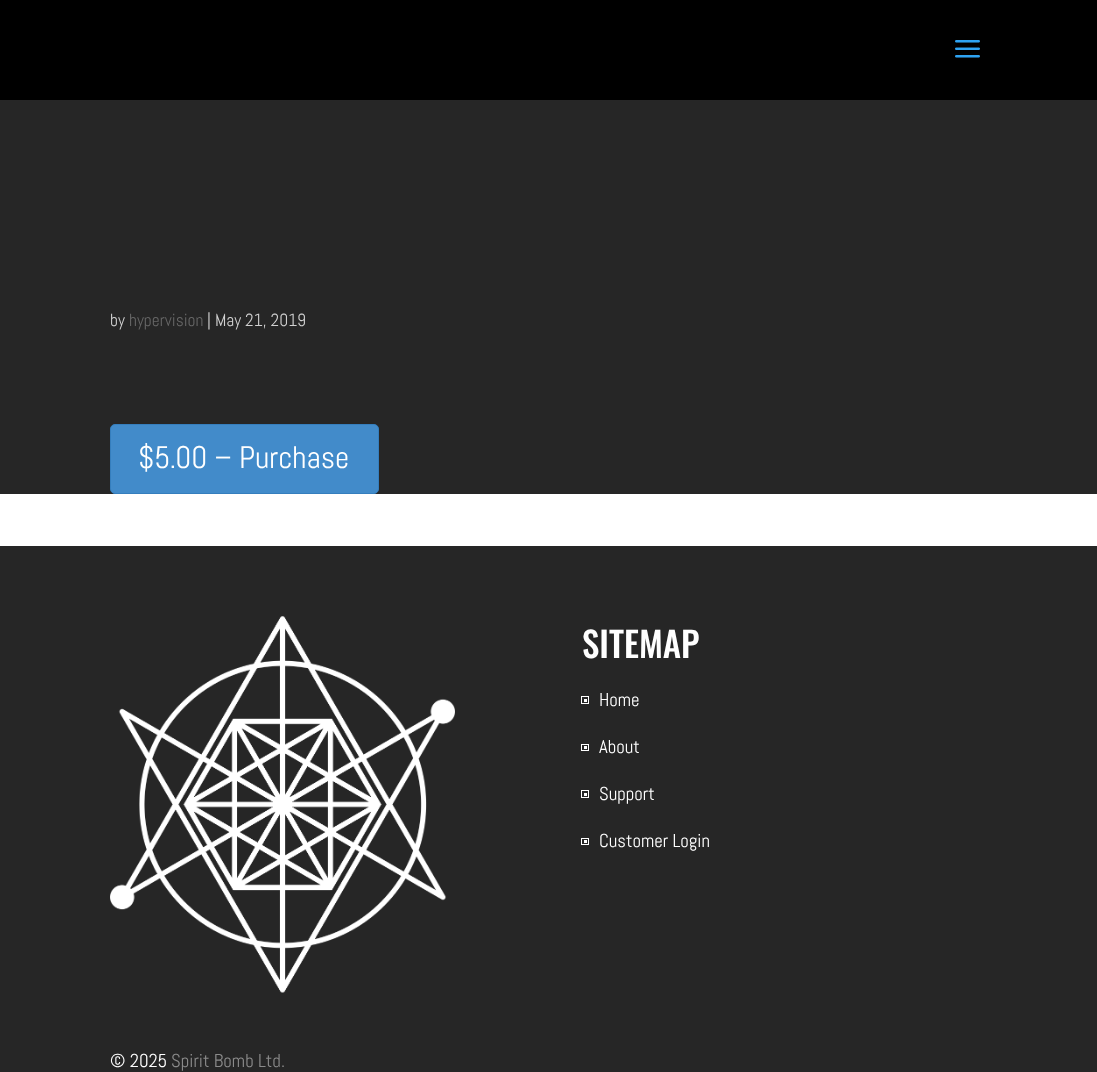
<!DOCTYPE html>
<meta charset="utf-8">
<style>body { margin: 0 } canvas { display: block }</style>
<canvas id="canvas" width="1097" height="1072"></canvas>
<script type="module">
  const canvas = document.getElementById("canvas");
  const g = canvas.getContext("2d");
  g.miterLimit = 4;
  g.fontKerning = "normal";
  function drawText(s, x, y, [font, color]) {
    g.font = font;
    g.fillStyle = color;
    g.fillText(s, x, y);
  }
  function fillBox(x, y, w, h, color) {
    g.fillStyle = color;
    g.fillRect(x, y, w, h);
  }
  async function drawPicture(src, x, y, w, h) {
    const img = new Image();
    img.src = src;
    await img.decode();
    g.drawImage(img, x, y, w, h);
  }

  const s1 = ["17.5px Abel", "#D1D1D1"];
  const s2 = ["17.5px Abel", "#666666"];
  const s3 = ["31.25px Abel", "#FFFFFF"];
  const s4 = ["500 35px Oswald", "#FFFFFF"];
  const s5 = ["18.75px Abel", "#FFFFFF"];
  const s6 = ["18.75px Abel", "#8B8B8B"];

  fillBox(0, 0, 1097, 1072, "#FFFFFF");
  fillBox(0, 0, 1097, 100, "#000000");
  await drawPicture("pic1.png", 955, 40, 25, 18);
  fillBox(0, 100, 1097, 394, "#262626");
  drawText("by", 110, 326, s1);
  drawText("hypervision", 129, 326, s2);
  drawText("| May 21, 2019", 207, 326, s1);
  g.fillStyle = "#428BCA";
  g.beginPath();
  g.roundRect(110.5, 424.5, 268, 69, 4.5);
  g.fill();
  g.strokeStyle = "#357EBD";
  g.stroke();
  drawText("$5.00 – Purchase", 138, 468, s3);
  fillBox(0, 546, 1097, 526, "#262626");
  drawText("SITEMAP", 582, 658, s4);
  g.strokeStyle = "#FFFFFF";
  g.strokeRect(581.5, 696.5, 7, 7);
  fillBox(584, 699, 3, 3, "#FFFFFF");
  drawText("Home", 599, 706, s5);
  g.strokeRect(581.5, 744.5, 7, 6);
  fillBox(584, 746, 3, 3, "#FFFFFF");
  drawText("About", 599, 753, s5);
  g.strokeRect(581.5, 790.5, 7, 7);
  fillBox(584, 793, 3, 3, "#FFFFFF");
  drawText("Support", 599, 800, s5);
  g.strokeRect(581.5, 838.5, 7, 6);
  fillBox(584, 840, 3, 3, "#FFFFFF");
  drawText("Customer Login", 599, 847, s5);
  await drawPicture("pic2.png", 110, 616, 345, 377);
  drawText("© 2025", 110, 1067, s5);
  drawText("Spirit Bomb Ltd.", 171, 1067, s6);
</script>
